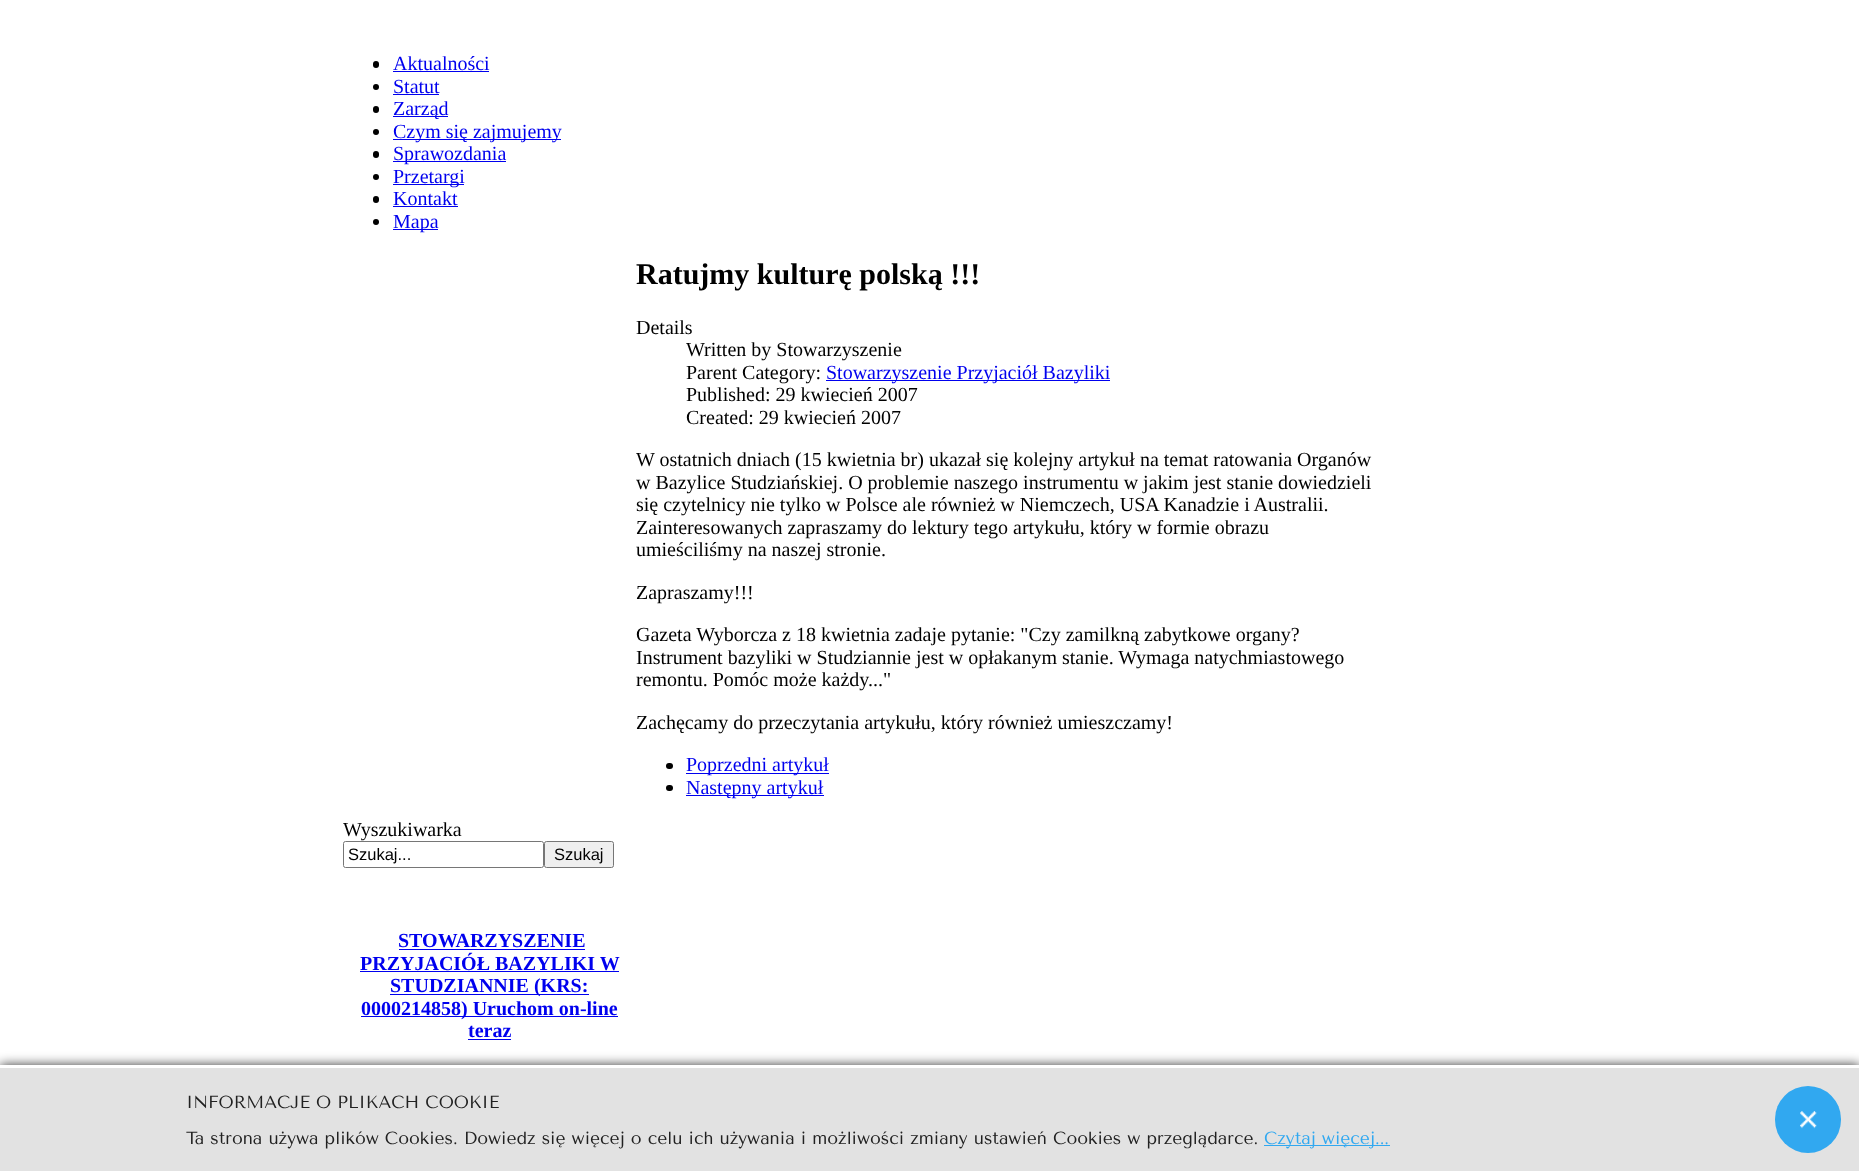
<!DOCTYPE html>
<meta charset="utf-8">
<style>body { margin: 0 } canvas { display: block }</style>
<canvas id="canvas" width="1859" height="1171"></canvas>
<script type="module">
  const canvas = document.getElementById("canvas");
  const g = canvas.getContext("2d");
  g.miterLimit = 4;
  g.fontKerning = "normal";
  function drawText(s, x, y, [font, color]) {
    g.font = font;
    g.fillStyle = color;
    g.fillText(s, x, y);
  }
  function fillBox(x, y, w, h, color) {
    g.fillStyle = color;
    g.fillRect(x, y, w, h);
  }
  function fillRounded(x, y, w, h, r, color) {
    g.fillStyle = color;
    g.beginPath();
    g.roundRect(x, y, w, h, r);
    g.fill();
  }
  async function drawPicture(src, x, y, w, h) {
    const img = new Image();
    img.src = src;
    await img.decode();
    g.drawImage(img, x, y, w, h);
  }

  const s1 = ["20px Liberation Serif", "#0000EE"];
  const s2 = ["bold 30px Liberation Serif", "#000000"];
  const s3 = ["20px Liberation Serif", "#000000"];
  const s4 = ["16.5px Liberation Sans", "#000000"];
  const s5 = ["bold 20px Liberation Serif", "#0000EE"];
  const s6 = ["17.5px Tenor Sans", "#212121"];
  const s7 = ["17.5px Tenor Sans", "#31A8F0"];

  fillBox(0, 0, 1859, 1171, "#FFFFFF");
  fillRounded(373, 61, 6, 7, 3, "#000000");
  drawText("Aktualności", 393, 70, s1);
  fillBox(393, 71, 96, 1, "#0000EE");
  g.fillStyle = "#000000";
  g.beginPath();
  g.arc(376, 87, 3, 0, Math.PI * 2);
  g.fill();
  drawText("Statut", 393, 93, s1);
  fillBox(393, 94, 46, 1, "#0000EE");
  fillRounded(373, 106, 6, 7, 3, "#000000");
  fillBox(393, 116, 55, 1, "#0000EE");
  drawText("Zarząd", 393, 115, s1);
  g.fillStyle = "#000000";
  g.beginPath();
  g.arc(376, 132, 3, 0, Math.PI * 2);
  g.fill();
  fillBox(393, 139, 168, 1, "#0000EE");
  drawText("Czym się zajmujemy", 393, 138, s1);
  fillRounded(373, 151, 6, 7, 3, "#000000");
  fillBox(393, 161, 113, 1, "#0000EE");
  drawText("Sprawozdania", 393, 160, s1);
  g.fillStyle = "#000000";
  g.beginPath();
  g.arc(376, 177, 3, 0, Math.PI * 2);
  g.fill();
  fillBox(393, 184, 71, 1, "#0000EE");
  drawText("Przetargi", 393, 183, s1);
  fillRounded(373, 196, 6, 7, 3, "#000000");
  drawText("Kontakt", 393, 205, s1);
  fillBox(393, 206, 65, 1, "#0000EE");
  g.fillStyle = "#000000";
  g.beginPath();
  g.arc(376, 222, 3, 0, Math.PI * 2);
  g.fill();
  fillBox(393, 229, 45, 1, "#0000EE");
  drawText("Mapa", 393, 228, s1);
  drawText("Ratujmy kulturę polską !!!", 636, 284, s2);
  drawText("Details", 636, 334, s3);
  drawText("Written by Stowarzyszenie", 686, 356, s3);
  drawText("Parent Category:", 686, 379, s3);
  fillBox(826, 380, 284, 1, "#0000EE");
  drawText("Stowarzyszenie Przyjaciół Bazyliki", 826, 379, s1);
  drawText("Published: 29 kwiecień 2007", 686, 401, s3);
  drawText("Created: 29 kwiecień 2007", 686, 424, s3);
  drawText("W ostatnich dniach (15 kwietnia br) ukazał się kolejny artykuł na temat ratowania Organów", 636, 466, s3);
  drawText("w Bazylice Studziańskiej. O problemie naszego instrumentu w jakim jest stanie dowiedzieli", 636, 489, s3);
  drawText("się czytelnicy nie tylko w Polsce ale również w Niemczech, USA Kanadzie i Australii.", 636, 511, s3);
  drawText("Zainteresowanych zapraszamy do lektury tego artykułu, który w formie obrazu", 636, 534, s3);
  drawText("umieściliśmy na naszej stronie.", 636, 556, s3);
  drawText("Zapraszamy!!!", 636, 599, s3);
  drawText("Gazeta Wyborcza z 18 kwietnia zadaje pytanie: \"Czy zamilkną zabytkowe organy?", 636, 641, s3);
  drawText("Instrument bazyliki w Studziannie jest w opłakanym stanie. Wymaga natychmiastowego", 636, 664, s3);
  drawText("remontu. Pomóc może każdy...\"", 636, 686, s3);
  drawText("Zachęcamy do przeczytania artykułu, który również umieszczamy!", 636, 729, s3);
  fillRounded(666, 763, 7, 6, 3, "#000000");
  fillBox(686, 773, 143, 1, "#0000EE");
  drawText("Poprzedni artykuł", 686, 771, s1);
  fillRounded(666, 785, 7, 6, 3, "#000000");
  fillBox(686, 795, 138, 1, "#0000EE");
  drawText("Następny artykuł", 686, 794, s1);
  drawText("Wyszukiwarka", 343, 836, s3);
  g.beginPath();
  g.roundRect(343.5, 841.5, 200, 26, 2);
  g.strokeStyle = "#767676";
  g.stroke();
  drawText("Szukaj...", 348, 860, s4);
  g.fillStyle = "#EFEFEF";
  g.beginPath();
  g.roundRect(544.5, 841.5, 69, 26, 2);
  g.fill();
  g.stroke();
  drawText("Szukaj", 554, 860, s4);
  drawText("STOWARZYSZENIE", 398, 947, s5);
  fillBox(399, 949, 186, 1, "#0000EE");
  drawText("PRZYJACIÓŁ BAZYLIKI W", 360, 970, s5);
  fillBox(360, 971, 259, 1, "#0000EE");
  fillBox(390, 994, 199, 1, "#0000EE");
  drawText("STUDZIANNIE (KRS:", 390, 992, s5);
  fillBox(361, 1016, 257, 1, "#0000EE");
  drawText("0000214858) Uruchom on-line", 361, 1015, s5);
  drawText("teraz", 468, 1037, s5);
  fillBox(468, 1039, 43, 1, "#0000EE");
  g.fillStyle = "rgba(0, 0, 0, 0.8)";
  g.filter = "blur(6px)";
  g.beginPath();
  g.rect(0, 1065, 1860, 106);
  g.fill();
  g.filter = "none";
  fillBox(0, 1068, 1859, 103, "#E2E2E2");
  fillBox(0, 1065, 1859, 3, "#FFFFFF");
  drawText("INFORMACJE O PLIKACH COOKIE", 186, 1108, s6);
  drawText("Ta strona używa plików Cookies. Dowiedz się więcej o celu ich używania i możliwości zmiany ustawień Cookies w przeglądarce.", 186, 1144, s6);
  fillBox(1264, 1145, 126, 1, "#31A8F0");
  drawText("Czytaj więcej...", 1264, 1144, s7);
  fillRounded(1775, 1086, 66, 67, 33, "#31A8F0");
  await drawPicture("pic1.png", 1800, 1111, 17, 18);
</script>
